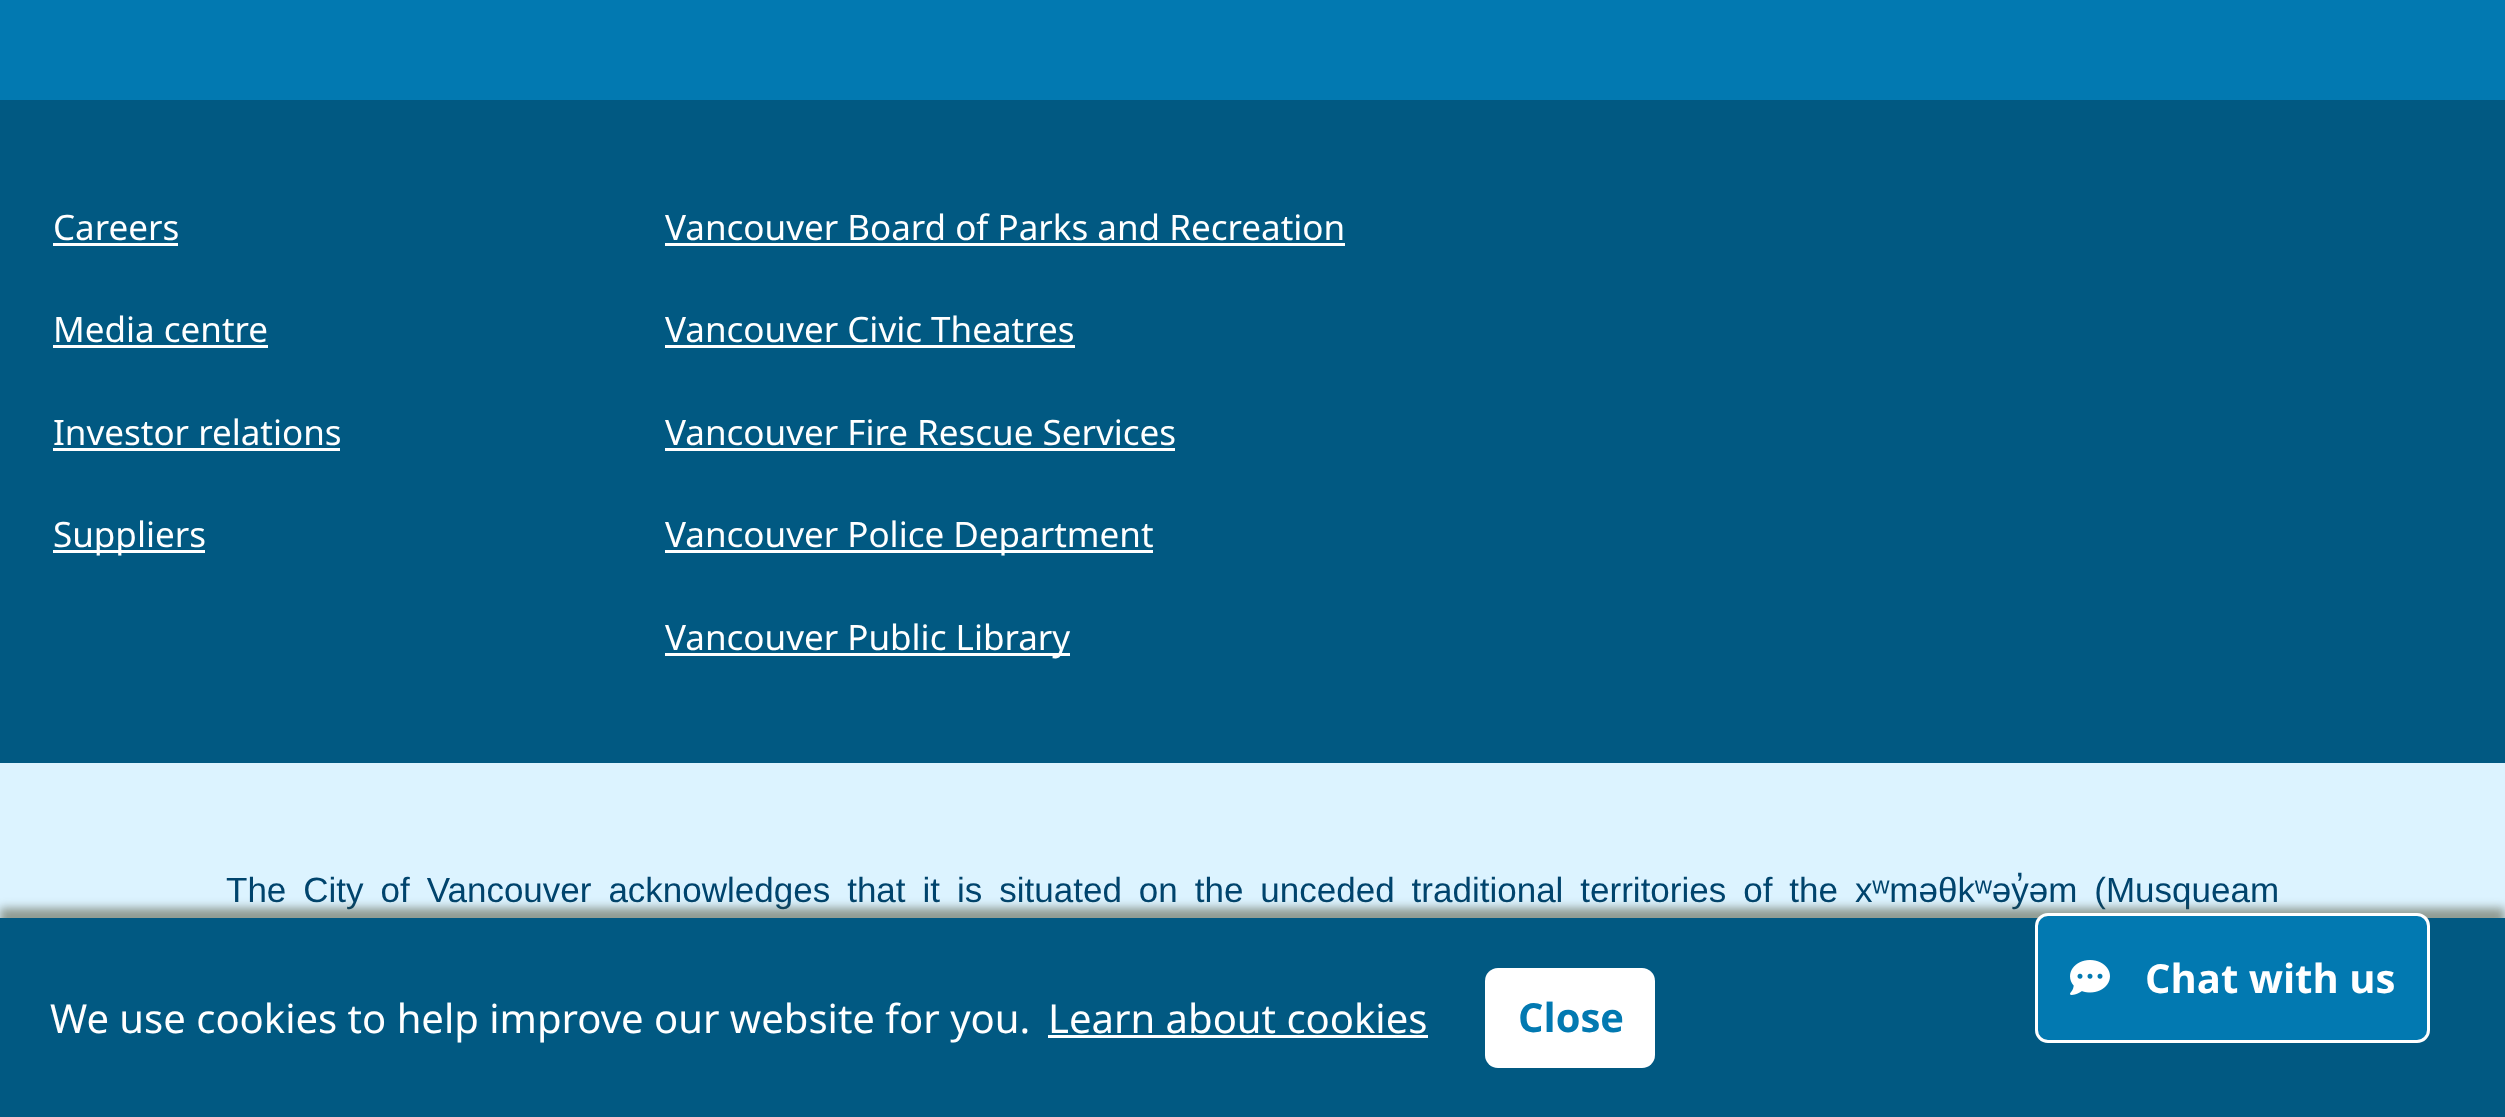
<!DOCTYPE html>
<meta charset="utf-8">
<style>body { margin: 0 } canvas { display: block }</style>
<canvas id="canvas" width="2505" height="1117"></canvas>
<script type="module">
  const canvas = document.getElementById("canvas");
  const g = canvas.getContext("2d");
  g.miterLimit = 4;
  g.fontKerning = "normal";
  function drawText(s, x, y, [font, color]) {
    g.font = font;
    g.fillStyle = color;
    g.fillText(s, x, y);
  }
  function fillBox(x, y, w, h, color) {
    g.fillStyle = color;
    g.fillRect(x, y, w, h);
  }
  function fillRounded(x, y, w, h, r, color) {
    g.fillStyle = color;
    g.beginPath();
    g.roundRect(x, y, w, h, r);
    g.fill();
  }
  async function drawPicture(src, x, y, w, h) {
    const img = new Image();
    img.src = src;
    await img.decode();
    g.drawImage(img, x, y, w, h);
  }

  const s1 = ["35px Noto Sans", "#FFFFFF"];
  const s2 = ["35px Liberation Sans", "#00446D"];
  const s3 = ["bold 40px Noto Sans", "#FFFFFF"];
  const s4 = ["40px Noto Sans", "#FFFFFF"];
  const s5 = ["bold 40px Noto Sans", "#0279B1"];

  fillBox(0, 0, 2505, 1117, "#0279B1");
  fillBox(0, 100, 2505, 663, "#015982");
  drawText("Careers", 53, 240, s1);
  fillBox(53, 243, 125, 3, "#FFFFFF");
  drawText("Media centre", 53, 342, s1);
  fillBox(53, 345, 215, 3, "#FFFFFF");
  drawText("Investor relations", 53, 445, s1);
  fillBox(53, 448, 287, 3, "#FFFFFF");
  fillBox(53, 550, 152, 3, "#FFFFFF");
  drawText("Suppliers", 53, 547, s1);
  drawText("Vancouver Board of Parks and Recreation", 665, 240, s1);
  fillBox(665, 243, 680, 3, "#FFFFFF");
  drawText("Vancouver Civic Theatres", 665, 342, s1);
  fillBox(665, 345, 410, 3, "#FFFFFF");
  drawText("Vancouver Fire Rescue Services", 665, 445, s1);
  fillBox(665, 448, 510, 3, "#FFFFFF");
  fillBox(665, 550, 488, 3, "#FFFFFF");
  drawText("Vancouver Police Department", 665, 547, s1);
  fillBox(665, 653, 405, 3, "#FFFFFF");
  drawText("Vancouver Public Library", 665, 650, s1);
  fillBox(0, 763, 2505, 155, "#DCF3FF");
  g.wordSpacing = "7.25px";
  drawText("The City of Vancouver acknowledges that it is situated on the unceded traditional territories of the xʷməθkʷəy̓əm (Musqueam", 226, 902, s2);
  g.fillStyle = "rgba(68, 68, 38, 0.5)";
  g.filter = "blur(5px)";
  g.beginPath();
  g.rect(0, 908, 2505, 200);
  g.fill();
  g.filter = "none";
  fillBox(0, 918, 2505, 199, "#015982");
  g.fillStyle = "#0279B1";
  g.beginPath();
  g.roundRect(2036.5, 914.5, 392, 127, 11.5);
  g.fill();
  g.strokeStyle = "#FFFFFF";
  g.lineWidth = 3;
  g.stroke();
  await drawPicture("pic1.png", 2070, 960, 40, 35);
  g.wordSpacing = "0px";
  drawText("Chat with us", 2145, 993, s3);
  drawText("We use cookies to help improve our website for you.", 50, 1033, s4);
  drawText("Learn about cookies", 1048, 1033, s4);
  fillBox(1048, 1035, 380, 3, "#FFFFFF");
  fillRounded(1485, 968, 170, 100, 13, "#FFFFFF");
  drawText("Close", 1518, 1032, s5);
</script>
